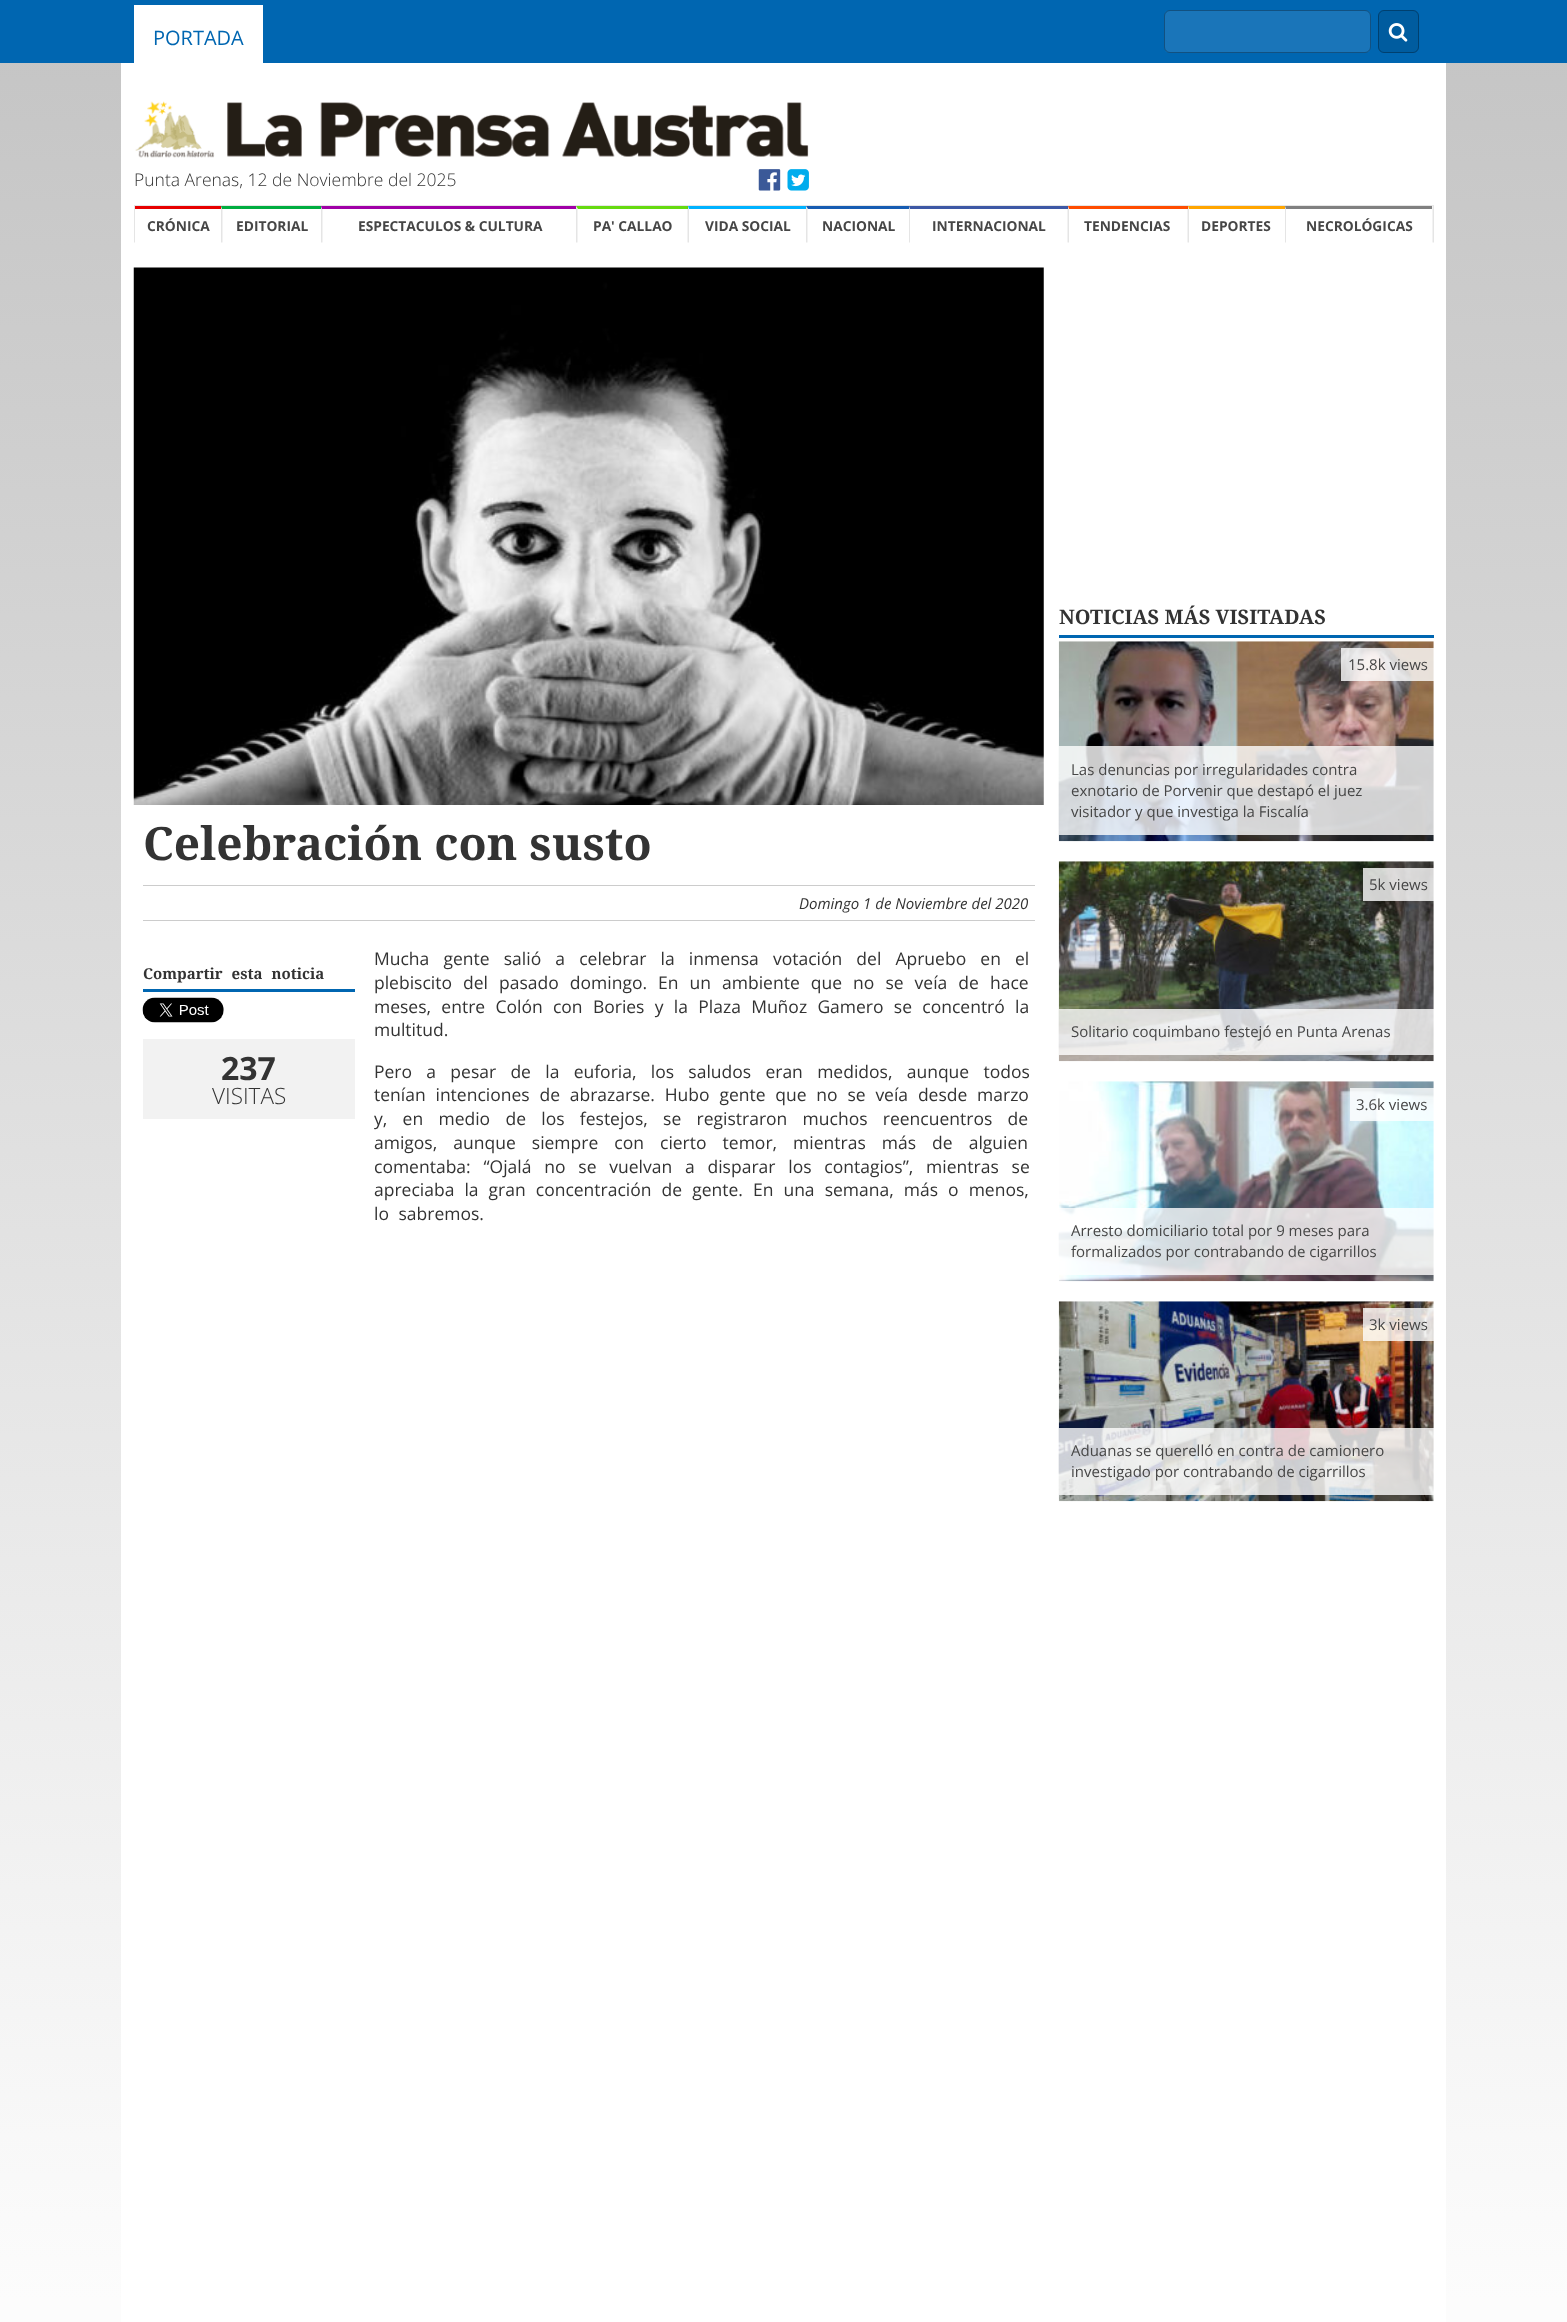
<!DOCTYPE html>
<meta charset="utf-8">
<style>body { margin: 0 } canvas { display: block }</style>
<canvas id="canvas" width="1567" height="2322"></canvas>
<script type="module">
  const canvas = document.getElementById("canvas");
  const g = canvas.getContext("2d");
  g.miterLimit = 4;
  g.fontKerning = "normal";
  function drawText(s, x, y, [font, color]) {
    g.font = font;
    g.fillStyle = color;
    g.fillText(s, x, y);
  }
  function fillBox(x, y, w, h, color) {
    g.fillStyle = color;
    g.fillRect(x, y, w, h);
  }
  function fillRounded(x, y, w, h, r, color) {
    g.fillStyle = color;
    g.beginPath();
    g.roundRect(x, y, w, h, r);
    g.fill();
  }
  async function drawPicture(src, x, y, w, h) {
    const img = new Image();
    img.src = src;
    await img.decode();
    g.drawImage(img, x, y, w, h);
  }
  let gradient;

  const s1 = ["20px Open Sans", "#0066B1"];
  const s2 = ["300 17.5px Open Sans", "#333333"];
  const s3 = ["bold 13.75px Open Sans", "#464646"];
  const s4 = ["bold 46px Droid Serif", "#333333"];
  const s5 = ["italic 15px Open Sans", "#333333"];
  const s6 = ["bold 15px Droid Serif", "#333333"];
  const s7 = ["bold 32px Open Sans", "#333333"];
  const s8 = ["300 22.5px Open Sans", "#333333"];
  const s9 = ["17.5px Open Sans", "#333333"];
  const s10 = ["bold 20px Droid Serif", "#333333"];
  const s11 = ["15px Open Sans", "#464646"];

  fillBox(0, 0, 1567, 2322, "#FFFFFF");
  gradient = g.createLinearGradient(784, 0, 784, 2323);
  gradient.addColorStop(0, "#C4C4C4");
  gradient.addColorStop(0.99, "#FCFCFC");
  g.fillStyle = gradient;
  g.fillRect(0, 63, 1567, 2259);
  fillBox(0, 0, 1567, 63, "#0066B1");
  fillBox(134, 5, 129, 58, "#FFFFFF");
  drawText("PORTADA", 153, 45, s1);
  fillRounded(1164, 10, 207, 43, 6, "#1A75B9");
  g.beginPath();
  g.roundRect(1164.5, 10.5, 206, 42, 5.5);
  g.strokeStyle = "rgba(0, 0, 0, 0.3)";
  g.stroke();
  fillRounded(1378, 10, 41, 43, 6, "#005C9F");
  g.beginPath();
  g.roundRect(1378.5, 10.5, 40, 42, 5.5);
  g.stroke();
  await drawPicture("pic1.png", 1388, 23, 20, 19);
  fillBox(121, 63, 1325, 2259, "#FFFFFF");
  drawText("Punta Arenas, 12 de Noviembre del 2025", 134, 186, s2);
  await drawPicture("pic2.png", 135, 101, 674, 72);
  await drawPicture("pic3.png", 758, 169, 23, 22);
  await drawPicture("pic4.png", 787, 169, 22, 22);
  g.fillStyle = "#E6E6E6";
  g.beginPath();
  g.moveTo(134, 205);
  g.lineTo(1434, 205);
  g.lineTo(1432, 206);
  g.lineTo(135, 206);
  g.closePath();
  g.fill();
  g.fillStyle = "rgba(0, 0, 0, 0.1)";
  g.beginPath();
  g.moveTo(1434, 205);
  g.lineTo(1434, 242.5);
  g.lineTo(1432.5, 242.5);
  g.lineTo(1432.5, 206);
  g.closePath();
  g.fill();
  g.beginPath();
  g.moveTo(134, 242.5);
  g.lineTo(134, 205);
  g.lineTo(135, 206);
  g.lineTo(135, 242.5);
  g.closePath();
  g.fill();
  fillBox(135, 206, 86, 3, "#E70000");
  drawText("CRÓNICA", 147, 231, s3);
  g.fillStyle = "#00AD40";
  g.beginPath();
  g.moveTo(221, 206);
  g.lineTo(321, 206);
  g.lineTo(321, 209);
  g.lineTo(222, 209);
  g.closePath();
  g.fill();
  g.fillStyle = "rgba(0, 0, 0, 0.1)";
  g.beginPath();
  g.moveTo(221, 242.5);
  g.lineTo(221, 206);
  g.lineTo(222.5, 209);
  g.lineTo(222.5, 242.5);
  g.closePath();
  g.fill();
  drawText("EDITORIAL", 236, 231, s3);
  g.fillStyle = "#A000A7";
  g.beginPath();
  g.moveTo(321, 206);
  g.lineTo(576, 206);
  g.lineTo(576, 209);
  g.lineTo(322, 209);
  g.closePath();
  g.fill();
  g.fillStyle = "rgba(0, 0, 0, 0.1)";
  g.beginPath();
  g.moveTo(321, 242.5);
  g.lineTo(321, 206);
  g.lineTo(322.5, 209);
  g.lineTo(322.5, 242.5);
  g.closePath();
  g.fill();
  drawText("ESPECTACULOS & CULTURA", 358, 231, s3);
  g.fillStyle = "#65DA0F";
  g.beginPath();
  g.moveTo(576, 206);
  g.lineTo(688, 206);
  g.lineTo(688, 209);
  g.lineTo(578, 209);
  g.closePath();
  g.fill();
  g.fillStyle = "rgba(0, 0, 0, 0.1)";
  g.beginPath();
  g.moveTo(576, 242.5);
  g.lineTo(576, 206);
  g.lineTo(577.5, 209);
  g.lineTo(577.5, 242.5);
  g.closePath();
  g.fill();
  drawText("PA' CALLAO", 593, 231, s3);
  g.fillStyle = "#00B2FF";
  g.beginPath();
  g.moveTo(688, 206);
  g.lineTo(806, 206);
  g.lineTo(806, 209);
  g.lineTo(689, 209);
  g.closePath();
  g.fill();
  g.fillStyle = "rgba(0, 0, 0, 0.1)";
  g.beginPath();
  g.moveTo(687.5, 242.5);
  g.lineTo(687.5, 206);
  g.lineTo(689, 209);
  g.lineTo(689, 242.5);
  g.closePath();
  g.fill();
  drawText("VIDA SOCIAL", 705, 231, s3);
  g.fillStyle = "#165CB2";
  g.beginPath();
  g.moveTo(806, 206);
  g.lineTo(909, 206);
  g.lineTo(909, 209);
  g.lineTo(808, 209);
  g.closePath();
  g.fill();
  g.fillStyle = "rgba(0, 0, 0, 0.1)";
  g.beginPath();
  g.moveTo(806, 242.5);
  g.lineTo(806, 206);
  g.lineTo(807.5, 209);
  g.lineTo(807.5, 242.5);
  g.closePath();
  g.fill();
  drawText("NACIONAL", 822, 231, s3);
  g.fillStyle = "#3D58A5";
  g.beginPath();
  g.moveTo(909, 206);
  g.lineTo(1068, 206);
  g.lineTo(1068, 209);
  g.lineTo(910, 209);
  g.closePath();
  g.fill();
  g.fillStyle = "rgba(0, 0, 0, 0.1)";
  g.beginPath();
  g.moveTo(909, 242.5);
  g.lineTo(909, 206);
  g.lineTo(910, 209);
  g.lineTo(910, 242.5);
  g.closePath();
  g.fill();
  drawText("INTERNACIONAL", 932, 231, s3);
  g.fillStyle = "#FF4C00";
  g.beginPath();
  g.moveTo(1068, 206);
  g.lineTo(1188, 206);
  g.lineTo(1188, 209);
  g.lineTo(1069, 209);
  g.closePath();
  g.fill();
  g.fillStyle = "rgba(0, 0, 0, 0.1)";
  g.beginPath();
  g.moveTo(1067.5, 242.5);
  g.lineTo(1067.5, 206);
  g.lineTo(1069, 209);
  g.lineTo(1069, 242.5);
  g.closePath();
  g.fill();
  drawText("TENDENCIAS", 1084, 231, s3);
  g.fillStyle = "#FFA500";
  g.beginPath();
  g.moveTo(1188, 206);
  g.lineTo(1285, 206);
  g.lineTo(1285, 209);
  g.lineTo(1189, 209);
  g.closePath();
  g.fill();
  g.fillStyle = "rgba(0, 0, 0, 0.1)";
  g.beginPath();
  g.moveTo(1187.5, 242.5);
  g.lineTo(1187.5, 206);
  g.lineTo(1189, 209);
  g.lineTo(1189, 242.5);
  g.closePath();
  g.fill();
  drawText("DEPORTES", 1201, 231, s3);
  g.fillStyle = "#808080";
  g.beginPath();
  g.moveTo(1285, 206);
  g.lineTo(1432, 206);
  g.lineTo(1432, 209);
  g.lineTo(1286, 209);
  g.closePath();
  g.fill();
  g.fillStyle = "rgba(0, 0, 0, 0.1)";
  g.beginPath();
  g.moveTo(1285, 242.5);
  g.lineTo(1285, 206);
  g.lineTo(1286, 209);
  g.lineTo(1286, 242.5);
  g.closePath();
  g.fill();
  drawText("NECROLÓGICAS", 1306, 231, s3);
  await drawPicture("pic5.png", 133, 267, 911, 538);
  drawText("Celebración con susto", 143, 860, s4);
  fillBox(143, 885, 892, 1, "#CCCCCC");
  fillBox(143, 920, 892, 1, "#CCCCCC");
  drawText("Domingo 1 de Noviembre del 2020", 799, 909, s5);
  fillBox(143, 989, 212, 3, "#0066B1");
  g.wordSpacing = "5px";
  drawText("Compartir esta noticia", 143, 979, s6);
  await drawPicture("pic6.png", 142, 997, 82, 26);
  fillBox(143, 1039, 212, 80, "#F2F2F2");
  g.wordSpacing = "0px";
  drawText("237", 221, 1080, s7);
  drawText("VISITAS", 212, 1104, s8);
  g.wordSpacing = "9.6px";
  drawText("Mucha gente salió a celebrar la inmensa votación del Apruebo en el", 374, 965, s9);
  g.wordSpacing = "6.5px";
  drawText("plebiscito del pasado domingo. En un ambiente que no se veía de hace", 374, 989, s9);
  g.wordSpacing = "5.75px";
  drawText("meses, entre Colón con Bories y la Plaza Muñoz Gamero se concentró la", 374, 1013, s9);
  g.wordSpacing = "0px";
  drawText("multitud.", 374, 1036, s9);
  g.wordSpacing = "9.75px";
  drawText("Pero a pesar de la euforia, los saludos eran medidos, aunque todos", 374, 1078, s9);
  g.wordSpacing = "5.25px";
  drawText("tenían intenciones de abrazarse. Hubo gente que no se veía desde marzo", 374, 1101, s9);
  g.wordSpacing = "10.75px";
  drawText("y, en medio de los festejos, se registraron muchos reencuentros de", 374, 1125, s9);
  g.wordSpacing = "11.5px";
  drawText("amigos, aunque siempre con cierto temor, mientras más de alguien", 374, 1149, s9);
  g.wordSpacing = "8.25px";
  drawText("comentaba: “Ojalá no se vuelvan a disparar los contagios”, mientras se", 374, 1173, s9);
  g.wordSpacing = "5.5px";
  drawText("apreciaba la gran concentración de gente. En una semana, más o menos,", 374, 1196, s9);
  g.wordSpacing = "5px";
  drawText("lo sabremos.", 374, 1220, s9);
  fillBox(1059, 635, 375, 3, "#0066B1");
  g.wordSpacing = "0px";
  drawText("NOTICIAS MÁS VISITADAS", 1059, 624, s10);
  await drawPicture("pic7.png", 1058, 641, 376, 201);
  fillBox(1341, 648, 93, 33, "rgba(255, 255, 255, 0.8)");
  drawText("15.8k views", 1348, 670, s11);
  fillBox(1059, 746, 375, 89, "rgba(255, 255, 255, 0.8)");
  drawText("Las denuncias por irregularidades contra", 1071, 775, s11);
  drawText("exnotario de Porvenir que destapó el juez", 1071, 796, s11);
  drawText("visitador y que investiga la Fiscalía", 1071, 817, s11);
  await drawPicture("pic8.png", 1058, 861, 376, 201);
  fillBox(1363, 868, 71, 33, "rgba(255, 255, 255, 0.8)");
  drawText("5k views", 1369, 890, s11);
  fillBox(1059, 1009, 375, 46, "rgba(255, 255, 255, 0.8)");
  drawText("Solitario coquimbano festejó en Punta Arenas", 1071, 1037, s11);
  await drawPicture("pic9.png", 1058, 1081, 376, 201);
  fillBox(1350, 1088, 84, 33, "rgba(255, 255, 255, 0.8)");
  drawText("3.6k views", 1356, 1110, s11);
  fillBox(1059, 1208, 375, 67, "rgba(255, 255, 255, 0.8)");
  drawText("Arresto domiciliario total por 9 meses para", 1071, 1236, s11);
  drawText("formalizados por contrabando de cigarrillos", 1071, 1257, s11);
  await drawPicture("pic10.png", 1058, 1301, 376, 201);
  fillBox(1363, 1308, 71, 33, "rgba(255, 255, 255, 0.8)");
  drawText("3k views", 1369, 1330, s11);
  fillBox(1059, 1428, 375, 67, "rgba(255, 255, 255, 0.8)");
  drawText("Aduanas se querelló en contra de camionero", 1071, 1456, s11);
  drawText("investigado por contrabando de cigarrillos", 1071, 1477, s11);
</script>
